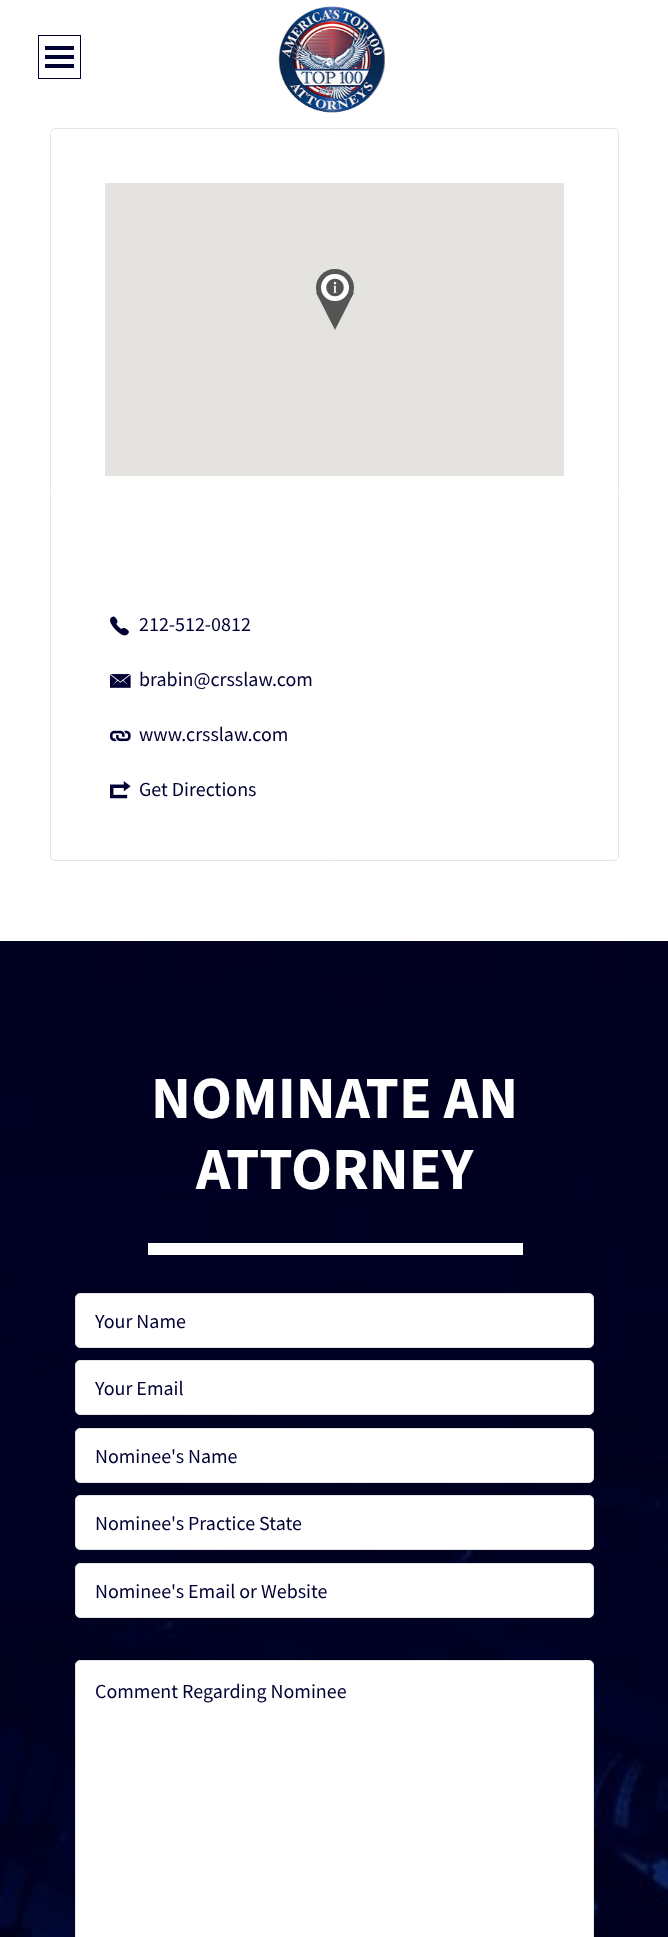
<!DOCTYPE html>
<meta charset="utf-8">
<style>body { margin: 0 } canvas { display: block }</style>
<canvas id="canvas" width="668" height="1937"></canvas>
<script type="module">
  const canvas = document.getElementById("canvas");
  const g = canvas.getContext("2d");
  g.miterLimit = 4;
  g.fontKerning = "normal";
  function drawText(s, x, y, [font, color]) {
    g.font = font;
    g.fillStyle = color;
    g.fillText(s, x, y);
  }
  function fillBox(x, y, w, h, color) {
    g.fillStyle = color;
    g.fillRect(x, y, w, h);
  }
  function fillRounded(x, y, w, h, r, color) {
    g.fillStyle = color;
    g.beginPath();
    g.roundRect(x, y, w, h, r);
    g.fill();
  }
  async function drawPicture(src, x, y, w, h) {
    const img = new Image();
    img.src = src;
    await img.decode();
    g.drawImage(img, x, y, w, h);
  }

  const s1 = ["20px Source Sans Pro", "#000033"];
  const s2 = ["bold 60px Source Sans Pro", "#FFFFFF"];

  fillBox(0, 0, 668, 1937, "#FFFFFF");
  g.strokeStyle = "#000033";
  g.strokeRect(38.5, 35.5, 42, 43);
  fillBox(45, 46, 29, 4, "#000033");
  fillBox(45, 55, 29, 4, "#000033");
  fillBox(45, 64, 29, 4, "#000033");
  await drawPicture("pic1.png", 278, 6, 107, 107);
  g.beginPath();
  g.roundRect(50.5, 128.5, 568, 732, 4.5);
  g.strokeStyle = "#E5E5E5";
  g.stroke();
  fillBox(105, 183, 459, 293, "#E5E3DF");
  g.fillStyle = "#555555";
  g.beginPath();
  g.moveTo(316, 292.5);
  g.lineTo(354, 292.5);
  g.lineTo(335, 330);
  g.closePath();
  g.fill();
  fillRounded(316, 269, 38, 37, 18.5, "#555555");
  fillRounded(321, 274, 28, 27, 13.5, "#FFFFFF");
  await drawPicture("pic2.png", 326, 278, 18, 19);
  await drawPicture("pic3.png", 110, 616, 19, 20);
  drawText("212-512-0812", 139, 631, s1);
  await drawPicture("pic4.png", 110, 674, 21, 14);
  drawText("brabin@crsslaw.com", 139, 686, s1);
  await drawPicture("pic5.png", 110, 730, 21, 12);
  drawText("www.crsslaw.com", 139, 741, s1);
  await drawPicture("pic6.png", 110, 781, 21, 18);
  drawText("Get Directions", 139, 796, s1);
  await drawPicture("pic7.png", 0, 941, 668, 996);
  drawText("NOMINATE AN", 151, 1118, s2);
  drawText("ATTORNEY", 196, 1189, s2);
  fillBox(148, 1243, 375, 12, "#FFFFFF");
  g.beginPath();
  g.roundRect(75.5, 1293.5, 518, 54, 4.5);
  g.fill();
  g.stroke();
  drawText("Your Name", 95, 1328, s1);
  g.fillStyle = "#FFFFFF";
  g.beginPath();
  g.roundRect(75.5, 1360.5, 518, 54, 4.5);
  g.fill();
  g.stroke();
  drawText("Your Email", 95, 1395, s1);
  g.fillStyle = "#FFFFFF";
  g.beginPath();
  g.roundRect(75.5, 1428.5, 518, 54, 4.5);
  g.fill();
  g.stroke();
  drawText("Nominee's Name", 95, 1463, s1);
  g.fillStyle = "#FFFFFF";
  g.beginPath();
  g.roundRect(75.5, 1495.5, 518, 54, 4.5);
  g.fill();
  g.stroke();
  drawText("Nominee's Practice State", 95, 1530, s1);
  g.fillStyle = "#FFFFFF";
  g.beginPath();
  g.roundRect(75.5, 1563.5, 518, 54, 4.5);
  g.fill();
  g.stroke();
  drawText("Nominee's Email or Website", 95, 1598, s1);
  g.fillStyle = "#FFFFFF";
  g.beginPath();
  g.roundRect(75.5, 1660.5, 518, 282, 4.5);
  g.fill();
  g.stroke();
  drawText("Comment Regarding Nominee", 95, 1698, s1);
</script>
